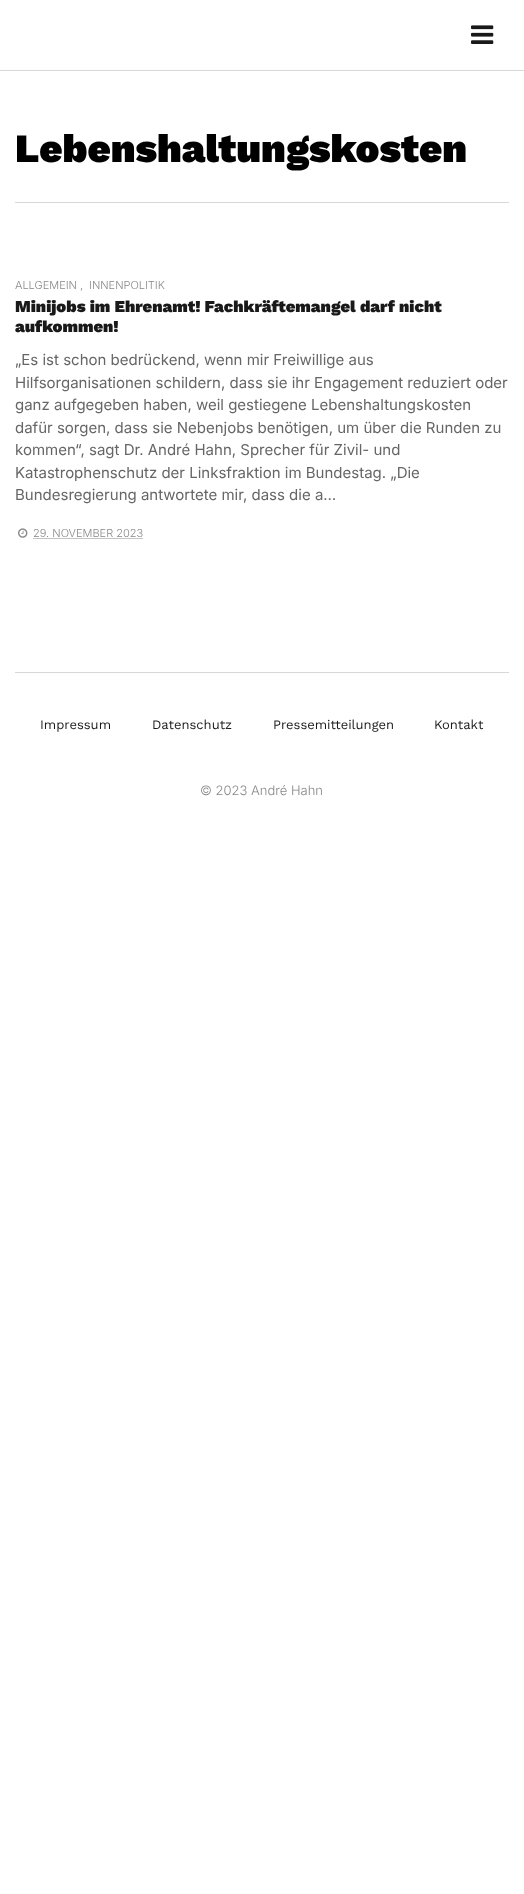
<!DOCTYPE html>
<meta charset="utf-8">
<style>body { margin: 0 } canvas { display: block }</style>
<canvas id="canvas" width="524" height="1894"></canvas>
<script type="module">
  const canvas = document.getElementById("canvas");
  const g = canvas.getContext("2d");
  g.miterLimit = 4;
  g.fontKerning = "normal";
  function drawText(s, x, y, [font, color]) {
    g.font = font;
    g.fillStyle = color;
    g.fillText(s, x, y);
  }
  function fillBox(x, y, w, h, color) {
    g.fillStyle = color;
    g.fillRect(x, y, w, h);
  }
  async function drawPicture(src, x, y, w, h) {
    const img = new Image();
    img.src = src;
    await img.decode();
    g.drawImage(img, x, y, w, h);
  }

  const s1 = ["900 40px Work Sans", "#000000"];
  const s2 = ["300 11px Inter", "#888888"];
  const s3 = ["900 16.6px Work Sans", "#1A1919"];
  const s4 = ["15px Inter", "#666666"];
  const s5 = ["13px Work Sans", "#1A1919"];
  const s6 = ["300 13px Inter", "#888888"];

  fillBox(0, 0, 524, 1894, "#FFFFFF");
  fillBox(0, 70, 524, 1, "#D8D8D8");
  await drawPicture("pic1.png", 471, 25, 23, 19);
  fillBox(15, 672, 494, 1, "#D8D8D8");
  drawText("Lebenshaltungskosten", 15, 162, s1);
  fillBox(15, 202, 494, 1, "#D8D8D8");
  drawText("ALLGEMEIN ,", 15, 289, s2);
  drawText("INNENPOLITIK", 89, 289, s2);
  drawText("Minijobs im Ehrenamt! Fachkräftemangel darf nicht", 15, 312, s3);
  drawText("aufkommen!", 15, 332, s3);
  drawText("„Es ist schon bedrückend, wenn mir Freiwillige aus", 15, 365, s4);
  drawText("Hilfsorganisationen schildern, dass sie ihr Engagement reduziert oder", 15, 388, s4);
  drawText("ganz aufgegeben haben, weil gestiegene Lebenshaltungskosten", 15, 410, s4);
  drawText("dafür sorgen, dass sie Nebenjobs benötigen, um über die Runden zu", 15, 433, s4);
  drawText("kommen“, sagt Dr. André Hahn, Sprecher für Zivil- und", 15, 455, s4);
  drawText("Katastrophenschutz der Linksfraktion im Bundestag. „Die", 15, 478, s4);
  drawText("Bundesregierung antwortete mir, dass die a…", 15, 500, s4);
  await drawPicture("pic2.png", 18, 528, 10, 10);
  drawText("29. NOVEMBER 2023", 33, 537, s2);
  g.beginPath();
  g.moveTo(33.5, 538.5);
  g.lineTo(143.5, 538.5);
  g.strokeStyle = "#888888";
  g.setLineDash([1, 1]);
  g.stroke();
  drawText("Impressum", 40, 729, s5);
  drawText("Datenschutz", 152, 729, s5);
  drawText("Pressemitteilungen", 273, 729, s5);
  drawText("Kontakt", 434, 729, s5);
  drawText("© 2023 André Hahn", 200, 795, s6);
</script>
